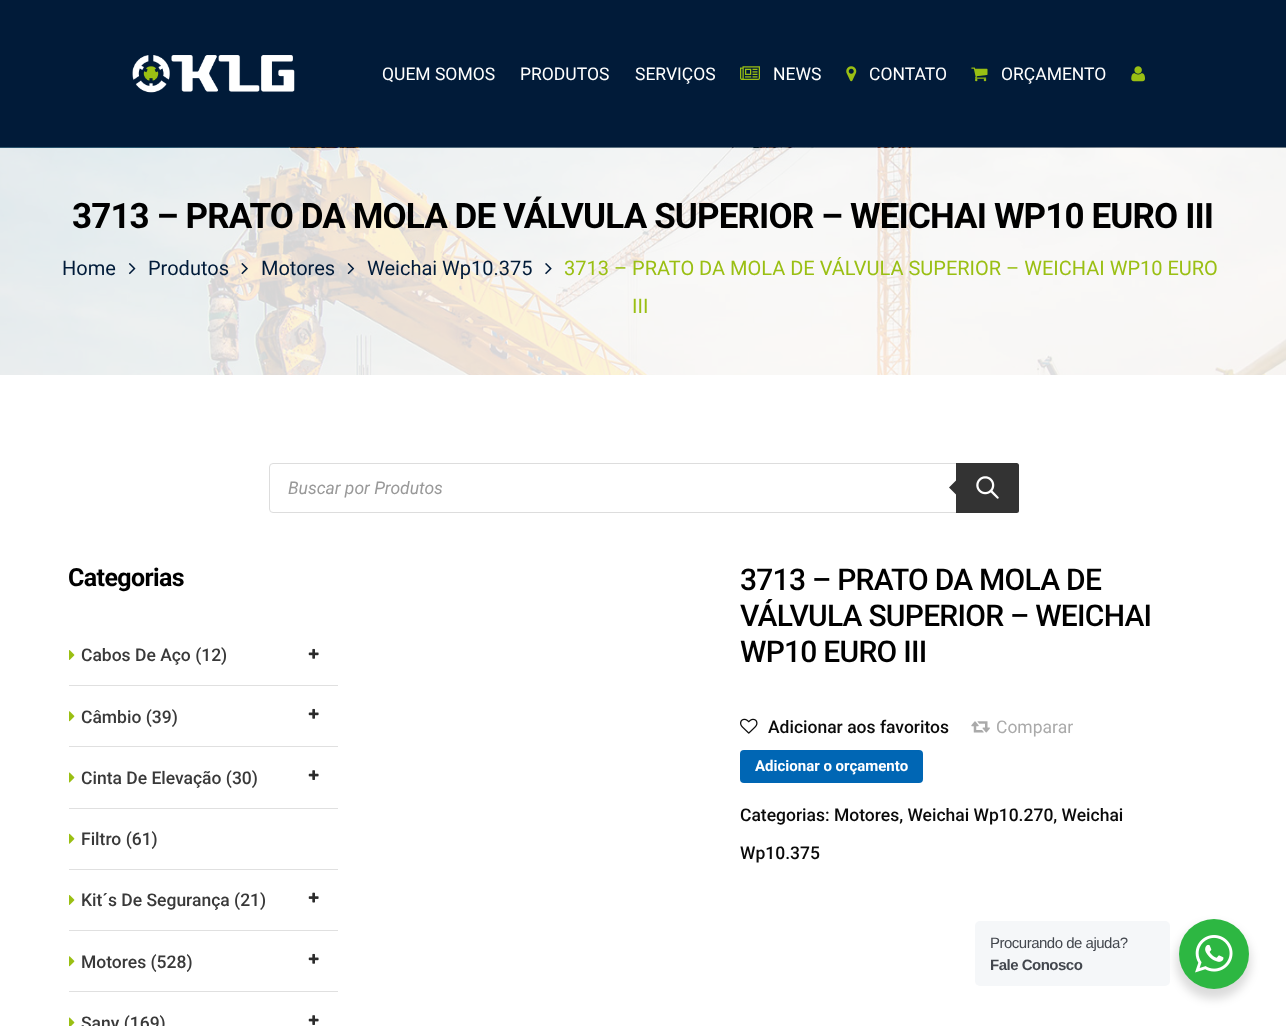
<!DOCTYPE html>
<meta charset="utf-8">
<style>body { margin: 0 } canvas { display: block }</style>
<canvas id="canvas" width="1286" height="1026"></canvas>
<script type="module">
  const canvas = document.getElementById("canvas");
  const g = canvas.getContext("2d");
  g.miterLimit = 4;
  g.fontKerning = "normal";
  function drawText(s, x, y, [font, color]) {
    g.font = font;
    g.fillStyle = color;
    g.fillText(s, x, y);
  }
  function fillBox(x, y, w, h, color) {
    g.fillStyle = color;
    g.fillRect(x, y, w, h);
  }
  function fillRounded(x, y, w, h, r, color) {
    g.fillStyle = color;
    g.beginPath();
    g.roundRect(x, y, w, h, r);
    g.fill();
  }
  async function drawPicture(src, x, y, w, h) {
    const img = new Image();
    img.src = src;
    await img.decode();
    g.drawImage(img, x, y, w, h);
  }

  const s1 = ["17.5px Roboto", "#FFFFFF"];
  const s2 = ["bold 35px Roboto", "#000000"];
  const s3 = ["20px Roboto", "#011B39"];
  const s4 = ["20px Roboto", "#9ABF13"];
  const s5 = ["italic 17.5px Roboto", "#999999"];
  const s6 = ["bold 25px Roboto", "#000000"];
  const s7 = ["500 17.5px Roboto", "#393939"];
  const s8 = ["500 30px Roboto", "#000000"];
  const s9 = ["500 17.5px Roboto", "#0A0A0A"];
  const s10 = ["17.5px Roboto", "#AAAAAA"];
  const s11 = ["bold 15px Roboto", "#FFFFFF"];
  const s12 = ["15px Liberation Sans", "#43474E"];
  const s13 = ["bold 15px Liberation Sans", "#43474E"];

  fillBox(0, 0, 1286, 1026, "#FFFFFF");
  fillBox(0, 0, 1286, 148, "#011B39");
  await drawPicture("pic1.png", 132, 55, 163, 38);
  drawText("QUEM SOMOS", 382, 80, s1);
  drawText("PRODUTOS", 520, 80, s1);
  drawText("SERVIÇOS", 635, 80, s1);
  await drawPicture("pic2.png", 740, 66, 20, 14);
  drawText("NEWS", 773, 80, s1);
  await drawPicture("pic3.png", 846, 66, 11, 16);
  drawText("CONTATO", 869, 80, s1);
  await drawPicture("pic4.png", 971, 67, 17, 15);
  drawText("ORÇAMENTO", 1001, 80, s1);
  await drawPicture("pic5.png", 1131, 66, 14, 16);
  await drawPicture("pic6.png", 0, 147, 1286, 228);
  g.letterSpacing = "-0.88px";
  drawText("3713 – PRATO DA MOLA DE VÁLVULA SUPERIOR – WEICHAI WP10 EURO III", 72, 228, s2);
  g.letterSpacing = "0px";
  drawText("Home", 62, 275, s3);
  await drawPicture("pic7.png", 128, 263, 8, 12);
  drawText("Produtos", 148, 275, s3);
  await drawPicture("pic8.png", 241, 263, 7, 12);
  drawText("Motores", 261, 275, s3);
  await drawPicture("pic9.png", 347, 263, 8, 12);
  drawText("Weichai Wp10.375", 367, 275, s3);
  await drawPicture("pic10.png", 545, 263, 7, 12);
  drawText("3713 – PRATO DA MOLA DE VÁLVULA SUPERIOR – WEICHAI WP10 EURO", 564, 275, s4);
  drawText("III", 632, 313, s4);
  g.beginPath();
  g.roundRect(269.5, 463.5, 749, 49, 3.5);
  g.strokeStyle = "#DDDDDD";
  g.stroke();
  drawText("Buscar por Produtos", 288, 494, s5);
  g.fillStyle = "#333333";
  g.beginPath();
  g.roundRect(956, 463, 63, 50, [0, 2.5, 2.5, 0]);
  g.fill();
  g.beginPath();
  g.moveTo(959, 477.5);
  g.lineTo(959, 497.5);
  g.lineTo(949, 487.5);
  g.closePath();
  g.fill();
  await drawPicture("pic11.png", 976, 476, 23, 23);
  g.letterSpacing = "-0.6px";
  drawText("Categorias", 68, 586, s6);
  await drawPicture("pic12.png", 69, 650, 6, 10);
  g.letterSpacing = "0px";
  drawText("Cabos De Aço (12)", 81, 661, s7);
  await drawPicture("pic13.png", 308, 648, 11, 11);
  fillBox(69, 685, 269, 1, "#E0E0E0");
  await drawPicture("pic14.png", 69, 711, 6, 11);
  drawText("Câmbio (39)", 81, 723, s7);
  await drawPicture("pic13.png", 308, 708, 11, 11);
  fillBox(69, 746, 269, 1, "#E0E0E0");
  await drawPicture("pic15.png", 69, 772, 6, 11);
  drawText("Cinta De Elevação (30)", 81, 784, s7);
  await drawPicture("pic16.png", 308, 770, 11, 10);
  fillBox(69, 808, 269, 1, "#E0E0E0");
  await drawPicture("pic17.png", 69, 833, 6, 11);
  drawText("Filtro (61)", 81, 845, s7);
  fillBox(69, 869, 269, 1, "#E0E0E0");
  await drawPicture("pic12.png", 69, 895, 6, 10);
  drawText("Kit´s De Segurança (21)", 81, 906, s7);
  await drawPicture("pic18.png", 308, 892, 11, 11);
  fillBox(69, 930, 269, 1, "#E0E0E0");
  await drawPicture("pic14.png", 69, 956, 6, 11);
  drawText("Motores (528)", 81, 968, s7);
  await drawPicture("pic13.png", 308, 953, 11, 11);
  fillBox(69, 991, 269, 1, "#E0E0E0");
  await drawPicture("pic19.png", 69, 1017, 6, 9);
  drawText("Sany (169)", 81, 1029, s7);
  await drawPicture("pic16.png", 308, 1015, 11, 10);
  g.letterSpacing = "-0.75px";
  drawText("3713 – PRATO DA MOLA DE", 740, 590, s8);
  drawText("VÁLVULA SUPERIOR – WEICHAI", 740, 626, s8);
  drawText("WP10 EURO III", 740, 662, s8);
  await drawPicture("pic20.png", 740, 718, 18, 16);
  g.letterSpacing = "0px";
  drawText("Adicionar aos favoritos", 768, 733, s9);
  await drawPicture("pic21.png", 971, 721, 19, 12);
  drawText("Comparar", 996, 733, s10);
  fillRounded(740, 750, 183, 33, 4, "#0066B4");
  drawText("Adicionar o orçamento", 755, 771, s11);
  drawText("Categorias: Motores, Weichai Wp10.270, Weichai", 740, 821, s9);
  drawText("Wp10.375", 740, 859, s9);
  g.fillStyle = "rgba(0, 0, 0, 0.14)";
  g.filter = "blur(5px)";
  g.beginPath();
  g.roundRect(1176, 924, 75, 75, 37.5);
  g.fill();
  g.filter = "none";
  fillRounded(975, 921, 195, 65, 5, "#F5F7F9");
  g.letterSpacing = "-0.5px";
  drawText("Procurando de ajuda?", 990, 948, s12);
  drawText("Fale Conosco", 990, 970, s13);
  g.fillStyle = "#2DB742";
  g.beginPath();
  g.arc(1214, 954, 35, 0, Math.PI * 2);
  g.fill();
  await drawPicture("pic22.png", 1195, 935, 38, 38);
</script>
